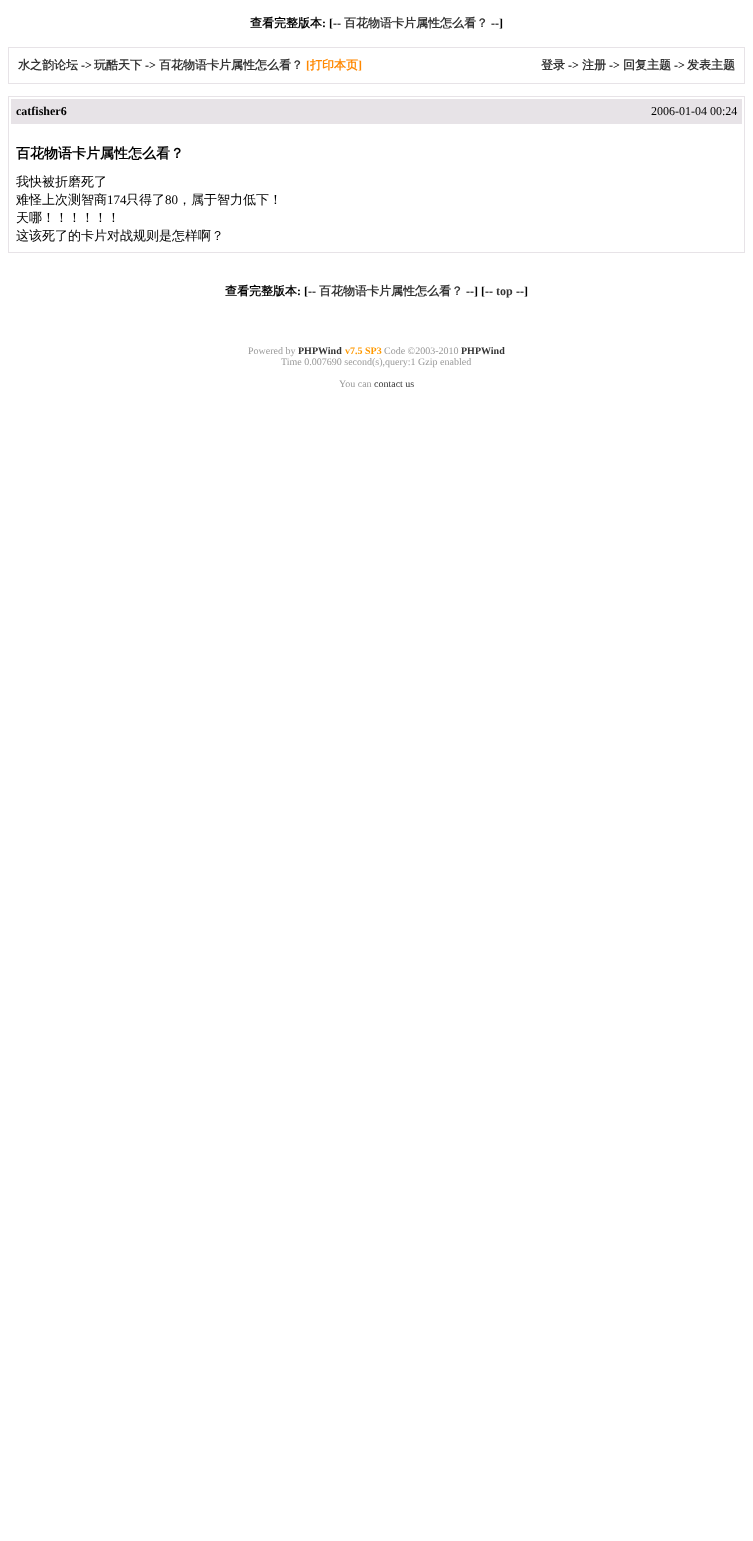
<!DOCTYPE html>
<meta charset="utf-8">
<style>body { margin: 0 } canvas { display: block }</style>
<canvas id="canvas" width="753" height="1541"></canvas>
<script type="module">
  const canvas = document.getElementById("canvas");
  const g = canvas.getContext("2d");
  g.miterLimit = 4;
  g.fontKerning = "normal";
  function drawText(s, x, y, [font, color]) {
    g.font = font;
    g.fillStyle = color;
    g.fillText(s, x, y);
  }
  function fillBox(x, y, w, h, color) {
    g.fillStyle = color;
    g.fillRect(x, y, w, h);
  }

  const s1 = ["bold 12px WenQuanYi Zen Hei", "#000000"];
  const s2 = ["bold 12px Liberation Serif", "#000000"];
  const s3 = ["bold 12px WenQuanYi Zen Hei", "#333333"];
  const s4 = ["bold 12px Liberation Serif", "#FF8800"];
  const s5 = ["bold 12px WenQuanYi Zen Hei", "#FF8800"];
  const s6 = ["12px Liberation Serif", "#000000"];
  const s7 = ["bold 14px WenQuanYi Zen Hei", "#000000"];
  const s8 = ["500 13px WenQuanYi Zen Hei", "#000000"];
  const s9 = ["13px Liberation Serif", "#000000"];
  const s10 = ["bold 12px Liberation Serif", "#333333"];
  const s11 = ["10px Liberation Serif", "#999999"];
  const s12 = ["bold 10px Liberation Serif", "#333333"];
  const s13 = ["bold 10px Liberation Serif", "#FF9900"];
  const s14 = ["10px Liberation Serif", "#333333"];

  fillBox(0, 0, 753, 1541, "#FFFFFF");
  drawText("查看完整版本", 250, 27, s1);
  drawText(": [--", 322, 27, s2);
  drawText("百花物语卡片属性怎么看？", 344, 27, s3);
  drawText("--]", 491, 27, s2);
  g.strokeStyle = "#E7E3E7";
  g.strokeRect(8.5, 47.5, 736, 36);
  drawText("水之韵论坛", 18, 69, s3);
  drawText("->", 81, 69, s2);
  drawText("玩酷天下", 94, 69, s3);
  drawText("->", 145, 69, s2);
  drawText("百花物语卡片属性怎么看？", 159, 69, s3);
  drawText("[", 306, 69, s4);
  drawText("打印本页", 310, 69, s5);
  drawText("]", 358, 69, s4);
  drawText("登录", 541, 69, s3);
  drawText("->", 568, 69, s2);
  drawText("注册", 582, 69, s3);
  drawText("->", 609, 69, s2);
  drawText("回复主题", 623, 69, s3);
  drawText("->", 674, 69, s2);
  drawText("发表主题", 687, 69, s3);
  g.strokeRect(8.5, 96.5, 736, 156);
  fillBox(11, 99, 731, 25, "#E7E3E7");
  drawText("catfisher6", 16, 115, s2);
  drawText("2006-01-04 00:24", 651, 115, s6);
  drawText("百花物语卡片属性怎么看？", 16, 158, s7);
  drawText("我快被折磨死了", 16, 186, s8);
  drawText("难怪上次测智商", 16, 204, s8);
  drawText("174", 107, 204, s9);
  drawText("只得了", 126, 204, s8);
  drawText("80", 165, 204, s9);
  drawText("，属于智力低下！", 178, 204, s8);
  drawText("天哪！！！！！！", 16, 222, s8);
  drawText("这该死了的卡片对战规则是怎样啊？", 16, 240, s8);
  drawText("查看完整版本", 225, 295, s1);
  drawText(": [--", 297, 295, s2);
  drawText("百花物语卡片属性怎么看？", 319, 295, s3);
  drawText("--] [--", 466, 295, s2);
  drawText("top", 496, 295, s10);
  drawText("--]", 516, 295, s2);
  drawText("Powered by", 248, 354, s11);
  drawText("PHPWind", 298, 354, s12);
  drawText("v7.5 SP3", 345, 354, s13);
  drawText("Code ©2003-2010", 384, 354, s11);
  drawText("PHPWind", 461, 354, s12);
  drawText("Time 0.007690 second(s),query:1 Gzip enabled", 281, 365, s11);
  drawText("You can", 339, 387, s11);
  drawText("contact us", 374, 387, s14);
</script>
